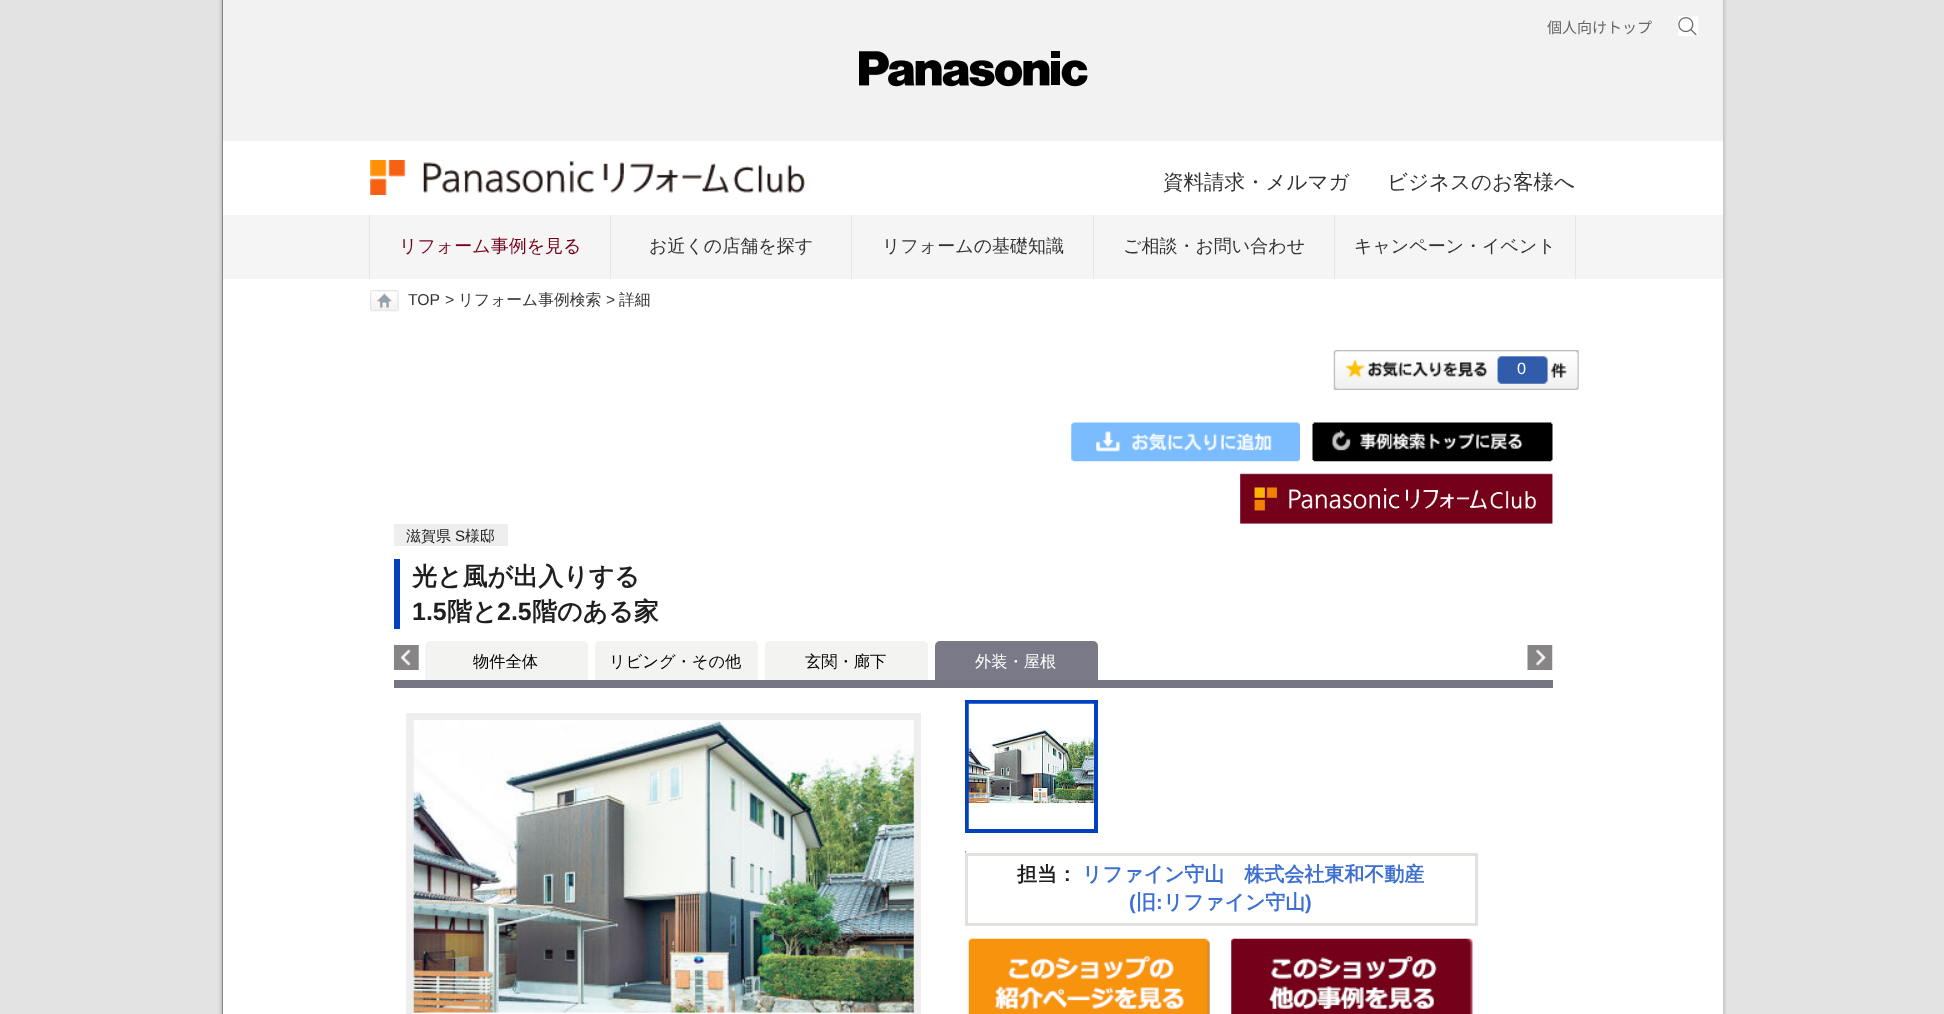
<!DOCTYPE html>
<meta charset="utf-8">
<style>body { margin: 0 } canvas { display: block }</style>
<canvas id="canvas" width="1944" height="1014"></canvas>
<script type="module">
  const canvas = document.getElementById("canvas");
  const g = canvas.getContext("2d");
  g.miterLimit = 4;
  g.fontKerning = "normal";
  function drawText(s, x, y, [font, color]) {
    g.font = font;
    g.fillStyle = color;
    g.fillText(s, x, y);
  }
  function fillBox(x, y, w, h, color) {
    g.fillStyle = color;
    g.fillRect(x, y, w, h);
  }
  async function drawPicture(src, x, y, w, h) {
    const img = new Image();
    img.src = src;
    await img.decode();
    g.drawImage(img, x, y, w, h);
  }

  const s1 = ["15px Noto Sans JP", "#666666"];
  const s2 = ["500 20.5px WenQuanYi Zen Hei", "#333333"];
  const s3 = ["500 18px WenQuanYi Zen Hei", "#74001A"];
  const s4 = ["500 18px WenQuanYi Zen Hei", "#333333"];
  const s5 = ["15.75px Liberation Sans", "#333333"];
  const s6 = ["500 15.75px WenQuanYi Zen Hei", "#333333"];
  const s7 = ["16.25px Liberation Sans", "#FFFFFF"];
  const s8 = ["500 15px WenQuanYi Zen Hei", "#1F1F1F"];
  const s9 = ["15px Liberation Sans", "#1F1F1F"];
  const s10 = ["bold 25px WenQuanYi Zen Hei", "#1F1F1F"];
  const s11 = ["bold 25px Liberation Sans", "#1F1F1F"];
  const s12 = ["500 16.25px WenQuanYi Zen Hei", "#000000"];
  const s13 = ["500 16.25px WenQuanYi Zen Hei", "#FFFFFF"];
  const s14 = ["bold 20px WenQuanYi Zen Hei", "#1F1F1F"];
  const s15 = ["bold 20px WenQuanYi Zen Hei", "#3E70D1"];
  const s16 = ["bold 20px Liberation Sans", "#3E70D1"];

  fillBox(0, 0, 1944, 1014, "#E3E3E3");
  await drawPicture("pic1.png", 218, 0, 1509, 1014);
  fillBox(223, 141, 1500, 873, "#FFFFFF");
  fillBox(223, 0, 1500, 141, "#F2F2F2");
  drawText("個人向けトップ", 1547, 33, s1);
  fillBox(1678, 16, 20, 20, "#FFFFFF");
  await drawPicture("pic2.png", 1678, 17, 19, 19);
  await drawPicture("pic3.png", 859, 51, 229, 36);
  await drawPicture("pic4.png", 370, 160, 435, 35);
  drawText("資料請求・メルマガ", 1163, 189, s2);
  drawText("ビジネスのお客様へ", 1387, 189, s2);
  fillBox(223, 215, 1500, 64, "#F5F5F5");
  fillBox(369, 215, 1, 64, "#E6E6E6");
  drawText("リフォーム事例を見る", 399, 252, s3);
  fillBox(610, 215, 1, 64, "#E6E6E6");
  drawText("お近くの店舗を探す", 649, 252, s4);
  fillBox(851, 215, 1, 64, "#E6E6E6");
  drawText("リフォームの基礎知識", 882, 252, s4);
  fillBox(1093, 215, 1, 64, "#E6E6E6");
  drawText("ご相談・お問い合わせ", 1123, 252, s4);
  fillBox(1575, 215, 1, 64, "#E6E6E6");
  fillBox(1334, 215, 1, 64, "#E6E6E6");
  drawText("キャンペーン・イベント", 1354, 252, s4);
  await drawPicture("pic5.png", 370, 290, 29, 22);
  drawText("TOP", 408, 305, s5);
  drawText(">", 445, 305, s5);
  drawText("リフォーム事例検索", 458, 305, s6);
  drawText(">", 606, 305, s5);
  drawText("詳細", 619, 305, s6);
  await drawPicture("pic6.png", 1333, 350, 246, 40);
  drawText("0", 1517, 374, s7);
  await drawPicture("pic7.png", 1071, 422, 229, 40);
  await drawPicture("pic8.png", 1312, 422, 241, 40);
  await drawPicture("pic9.png", 1240, 473, 313, 51);
  fillBox(394, 524, 114, 22, "#EEEEEE");
  drawText("滋賀県", 406, 541, s8);
  drawText("S", 455, 541, s9);
  drawText("様邸", 465, 541, s8);
  fillBox(394, 559, 6, 70, "#0041BF");
  drawText("光と風が出入りする", 412, 585, s10);
  drawText("1.5", 412, 620, s11);
  drawText("階と", 447, 620, s10);
  drawText("2.5", 497, 620, s11);
  drawText("階のある家", 532, 620, s10);
  fillBox(394, 680, 1159, 8, "#757584");
  await drawPicture("pic10.png", 393, 645, 26, 25);
  g.fillStyle = "#F3F3F1";
  g.beginPath();
  g.roundRect(425, 641, 163, 39, [5, 5, 0, 0]);
  g.fill();
  drawText("物件全体", 473, 667, s12);
  g.fillStyle = "#F3F3F1";
  g.beginPath();
  g.roundRect(595, 641, 163, 39, [5, 5, 0, 0]);
  g.fill();
  drawText("リビング・その他", 609, 667, s12);
  g.fillStyle = "#F3F3F1";
  g.beginPath();
  g.roundRect(765, 641, 163, 39, [5, 5, 0, 0]);
  g.fill();
  drawText("玄関・廊下", 805, 667, s12);
  g.fillStyle = "#797987";
  g.beginPath();
  g.roundRect(935, 641, 163, 39, [5, 5, 0, 0]);
  g.fill();
  drawText("外装・屋根", 975, 667, s13);
  await drawPicture("pic11.png", 1527, 645, 26, 25);
  g.strokeStyle = "#EEEEEE";
  g.lineWidth = 8;
  g.strokeRect(410, 717, 507, 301);
  await drawPicture("pic12.png", 413, 720, 501, 293);
  g.strokeStyle = "#0140C1";
  g.lineWidth = 4;
  g.strokeRect(967, 702, 129, 129);
  await drawPicture("pic13.png", 968, 703, 126, 126);
  await drawPicture("pic14.png", 965, 851, 2, 2);
  g.strokeStyle = "#E1E1DD";
  g.lineWidth = 3;
  g.strokeRect(966.5, 854.5, 510, 70);
  drawText("担当：", 1017, 881, s14);
  drawText("リファイン守山　株式会社東和不動産", 1082, 881, s15);
  drawText("(", 1129, 909, s16);
  drawText("旧", 1136, 909, s15);
  drawText(":", 1156, 909, s16);
  drawText("リファイン守山", 1163, 909, s15);
  drawText(")", 1305, 909, s16);
  await drawPicture("pic15.png", 968, 938, 242, 76);
  await drawPicture("pic16.png", 1231, 938, 242, 76);
</script>
